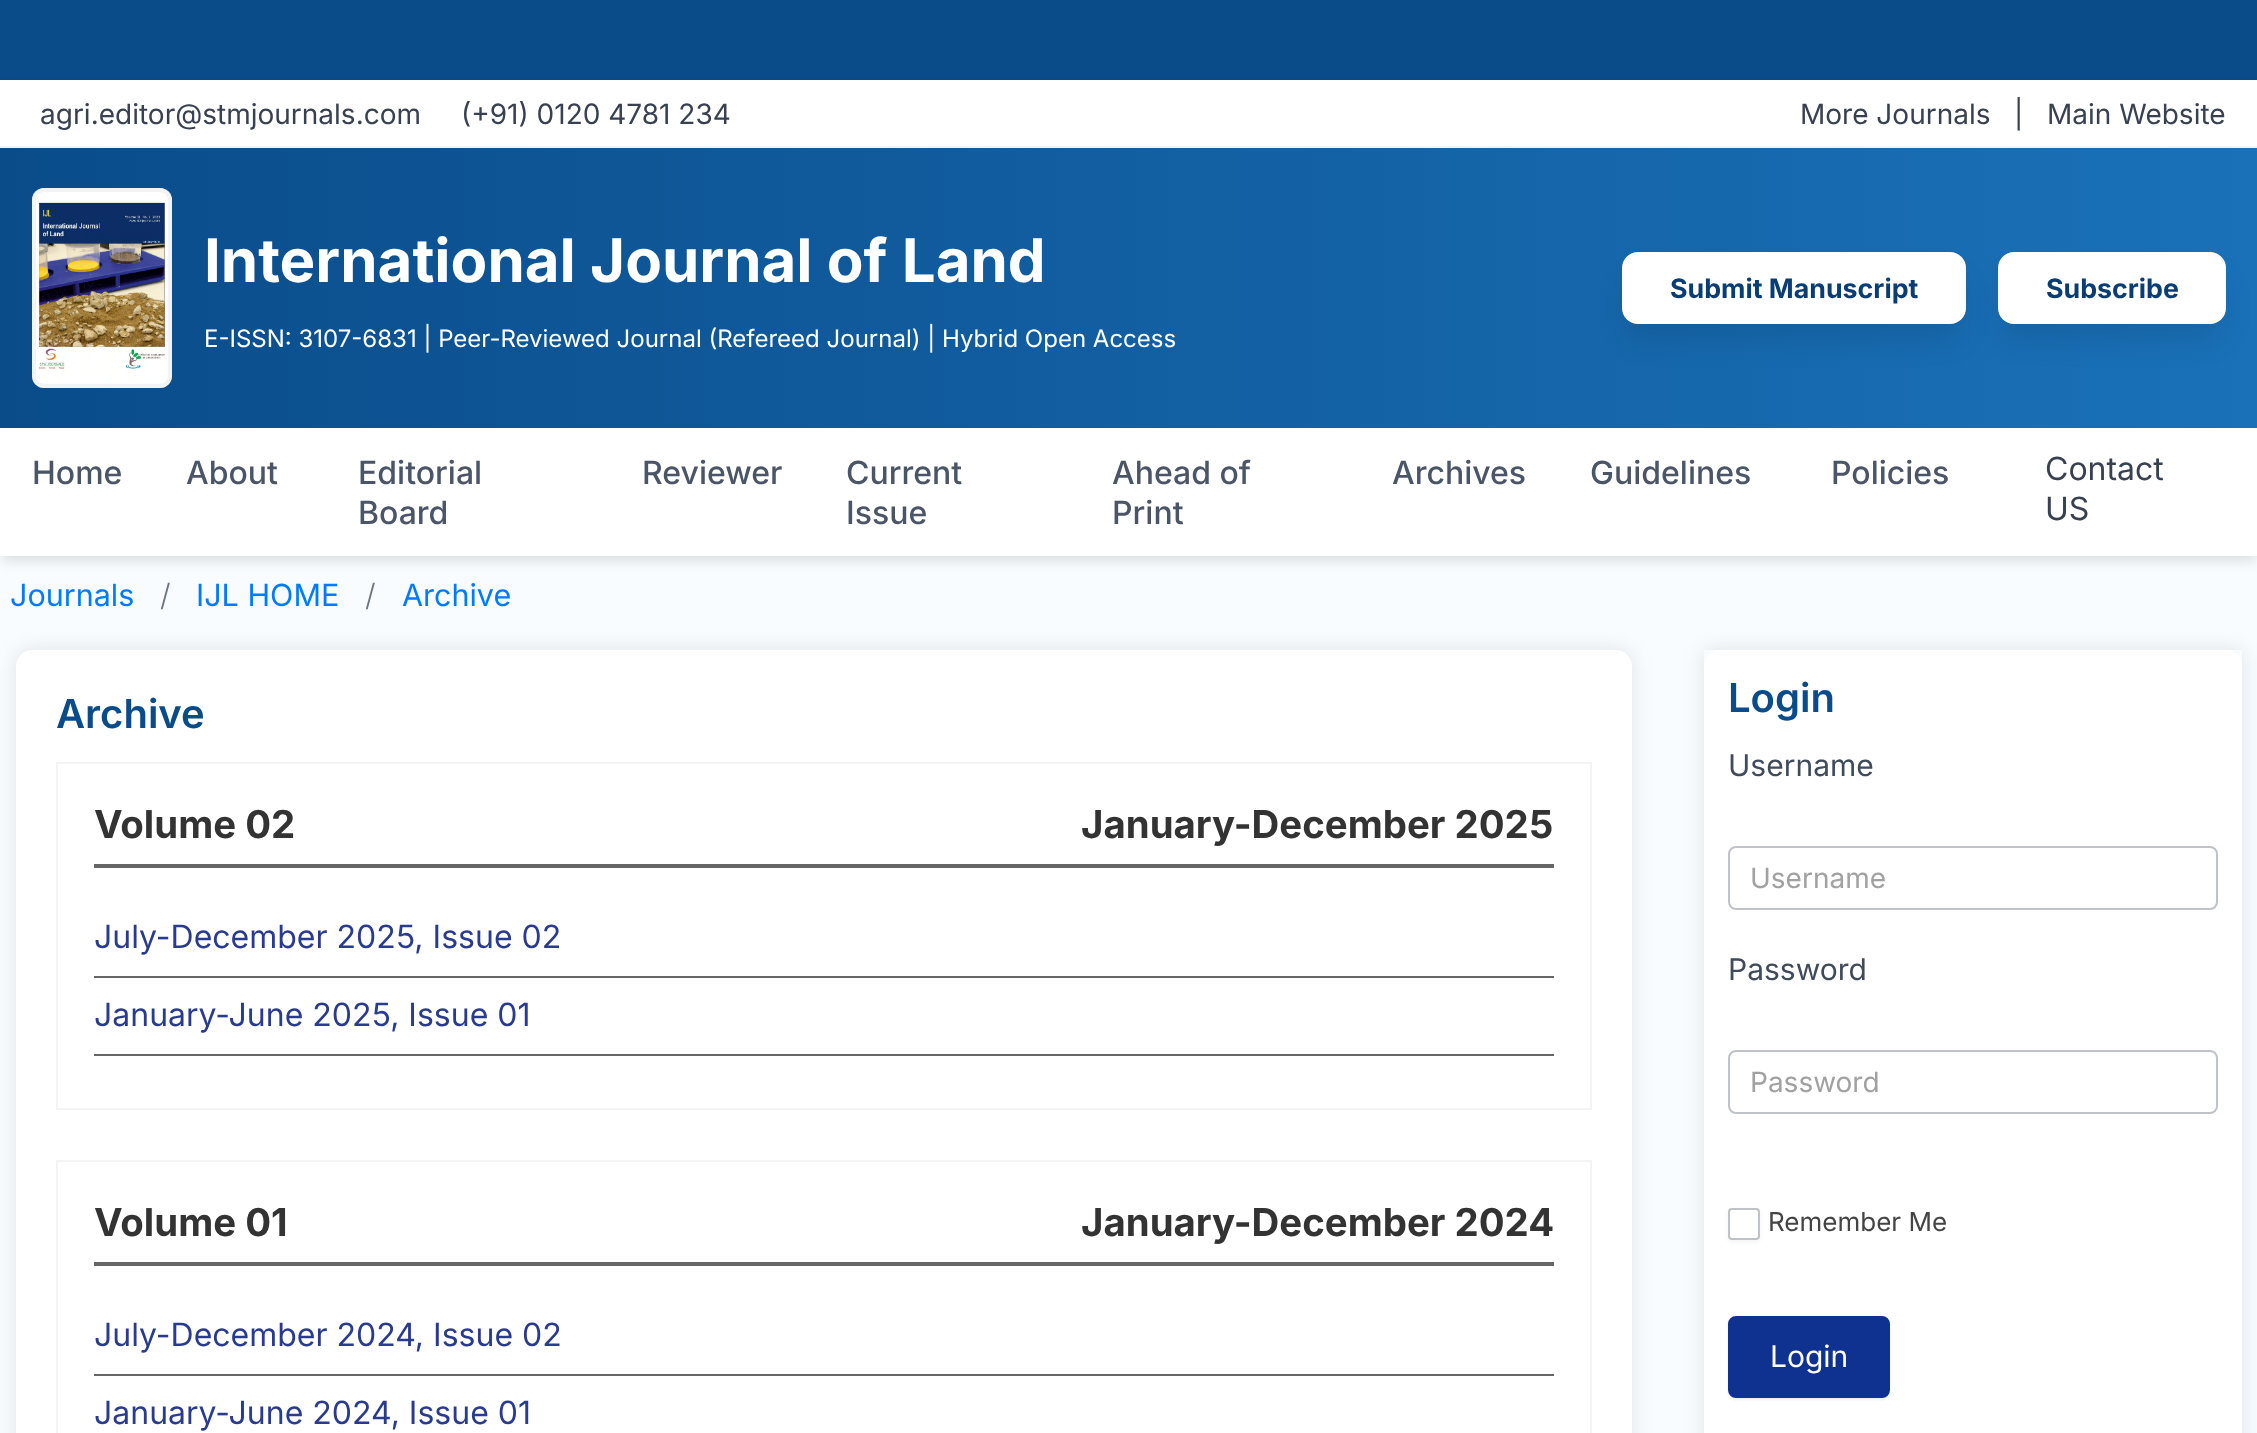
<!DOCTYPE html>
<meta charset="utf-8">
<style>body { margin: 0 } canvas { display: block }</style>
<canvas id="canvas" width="2257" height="1433"></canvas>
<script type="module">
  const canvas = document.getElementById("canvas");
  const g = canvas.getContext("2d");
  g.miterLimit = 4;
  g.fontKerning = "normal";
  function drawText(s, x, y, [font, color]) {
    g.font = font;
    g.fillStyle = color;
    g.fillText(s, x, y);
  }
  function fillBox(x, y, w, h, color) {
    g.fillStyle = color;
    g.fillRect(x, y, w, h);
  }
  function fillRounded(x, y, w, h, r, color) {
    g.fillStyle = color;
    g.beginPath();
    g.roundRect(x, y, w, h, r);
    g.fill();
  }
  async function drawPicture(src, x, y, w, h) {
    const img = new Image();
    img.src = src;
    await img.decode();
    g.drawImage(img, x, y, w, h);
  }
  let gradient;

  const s1 = ["28px Inter", "#374151"];
  const s2 = ["bold 60px Inter", "#FFFFFF"];
  const s3 = ["24px Inter", "#FFFFFF"];
  const s4 = ["bold 26.75px Inter", "#0A3D73"];
  const s5 = ["500 32px Inter", "#4A5568"];
  const s6 = ["32px Inter", "#374151"];
  const s7 = ["30.5px Inter", "#007BFF"];
  const s8 = ["300 30.5px Inter", "#6C757D"];
  const s9 = ["600 40px Inter", "#0A4C8A"];
  const s10 = ["bold 38.4px Inter", "#333333"];
  const s11 = ["32px Inter", "#293B90"];
  const s12 = ["30px Inter", "#3F4B5B"];
  const s13 = ["28px Inter", "#A1A1A1"];
  const s14 = ["26px Inter", "#444444"];
  const s15 = ["30px Inter", "#FFFFFF"];

  fillBox(0, 0, 2257, 1433, "#F8FCFF");
  fillBox(0, 0, 2257, 80, "#0A4C8A");
  g.fillStyle = "rgba(0, 0, 0, 0.1)";
  g.filter = "blur(3px)";
  g.beginPath();
  g.rect(0, 82, 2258, 68);
  g.fill();
  g.filter = "none";
  fillBox(0, 80, 2257, 66, "#FFFFFF");
  fillBox(0, 146, 2257, 2, "#F3F4F6");
  drawText("agri.editor@stmjournals.com", 40, 124, s1);
  drawText("(+91) 0120 4781 234", 461, 124, s1);
  drawText("More Journals", 1800, 124, s1);
  drawText("|", 2014, 124, s1);
  drawText("Main Website", 2047, 124, s1);
  gradient = g.createLinearGradient(0, 288, 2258, 288);
  gradient.addColorStop(0, "#0A4C8A");
  gradient.addColorStop(1, "#1A71B8");
  g.fillStyle = gradient;
  g.fillRect(0, 148, 2257, 280);
  fillRounded(32, 188, 140, 200, 12, "#E5E7EB");
  g.beginPath();
  g.roundRect(34, 190, 136, 196, 10);
  g.strokeStyle = "rgba(255, 255, 255, 0.5)";
  g.lineWidth = 4;
  g.stroke();
  await drawPicture("pic1.png", 36, 192, 132, 192);
  drawText("International Journal of Land", 204, 282, s2);
  drawText("E-ISSN: 3107-6831 | Peer-Reviewed Journal (Refereed Journal) | Hybrid Open Access", 204, 347, s3);
  g.fillStyle = "rgba(0, 0, 0, 0.1)";
  g.filter = "blur(15px)";
  g.beginPath();
  g.roundRect(1628, 278, 332, 60, 10);
  g.fill();
  g.filter = "none";
  fillRounded(1622, 252, 344, 72, 16, "#FFFFFF");
  drawText("Submit Manuscript", 1670, 298, s4);
  g.fillStyle = "rgba(0, 0, 0, 0.1)";
  g.filter = "blur(15px)";
  g.beginPath();
  g.roundRect(2004, 278, 216, 60, 10);
  g.fill();
  g.filter = "none";
  fillRounded(1998, 252, 228, 72, 16, "#FFFFFF");
  drawText("Subscribe", 2046, 298, s4);
  g.fillStyle = "rgba(0, 0, 0, 0.1)";
  g.filter = "blur(6px)";
  g.beginPath();
  g.rect(2, 438, 2254, 124);
  g.fill();
  g.filter = "none";
  fillBox(0, 428, 2257, 128, "#FFFFFF");
  drawText("Home", 32, 484, s5);
  drawText("About", 186, 484, s5);
  drawText("Editorial", 358, 484, s5);
  drawText("Board", 358, 524, s5);
  drawText("Reviewer", 642, 484, s5);
  drawText("Current", 846, 484, s5);
  drawText("Issue", 846, 524, s5);
  drawText("Ahead of", 1112, 484, s5);
  drawText("Print", 1112, 524, s5);
  drawText("Archives", 1392, 484, s5);
  drawText("Guidelines", 1590, 484, s5);
  drawText("Policies", 1831, 484, s5);
  drawText("Contact", 2045, 480, s6);
  drawText("US", 2045, 520, s6);
  drawText("Journals", 10, 606, s7);
  drawText("/", 160, 606, s8);
  drawText("IJL HOME", 196, 606, s7);
  drawText("/", 365, 606, s8);
  drawText("Archive", 402, 606, s7);
  g.fillStyle = "rgba(0, 0, 0, 0.1)";
  g.filter = "blur(10px)";
  g.beginPath();
  g.roundRect(16, 650, 1616, 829, 16);
  g.fill();
  g.filter = "none";
  fillRounded(16, 650, 1616, 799, 16, "#FFFFFF");
  drawText("Archive", 56, 728, s9);
  g.strokeStyle = "#F4F4F4";
  g.lineWidth = 2;
  g.strokeRect(57, 763, 1534, 346);
  fillBox(94, 864, 1460, 4, "#666666");
  drawText("Volume 02", 94, 838, s10);
  drawText("January-December 2025", 1081, 838, s10);
  fillBox(94, 976, 1460, 2, "#666666");
  drawText("July-December 2025, Issue 02", 94, 948, s11);
  fillBox(94, 1054, 1460, 2, "#666666");
  drawText("January-June 2025, Issue 01", 94, 1026, s11);
  g.strokeRect(57, 1161, 1534, 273);
  fillBox(94, 1262, 1460, 4, "#666666");
  drawText("Volume 01", 94, 1236, s10);
  drawText("January-December 2024", 1081, 1236, s10);
  fillBox(94, 1374, 1460, 2, "#666666");
  drawText("July-December 2024, Issue 02", 94, 1346, s11);
  drawText("January-June 2024, Issue 01", 94, 1424, s11);
  g.save();
  g.beginPath();
  g.moveTo(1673, 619);
  g.lineTo(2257, 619);
  g.lineTo(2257, 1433);
  g.lineTo(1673, 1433);
  g.closePath();
  g.moveTo(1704, 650);
  g.lineTo(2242, 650);
  g.lineTo(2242, 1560);
  g.lineTo(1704, 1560);
  g.closePath();
  g.clip("evenodd");
  g.fillStyle = "rgba(0, 0, 0, 0.1)";
  g.filter = "blur(10px)";
  g.beginPath();
  g.rect(1704, 650, 538, 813);
  g.fill();
  g.filter = "none";
  g.restore();
  fillRounded(1704, 650, 538, 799, 16, "#FFFFFF");
  drawText("Login", 1728, 712, s9);
  drawText("Username", 1728, 776, s12);
  g.beginPath();
  g.roundRect(1729, 847, 488, 62, 7);
  g.strokeStyle = "#BFC3C8";
  g.stroke();
  drawText("Username", 1750, 888, s13);
  drawText("Password", 1728, 980, s12);
  g.beginPath();
  g.roundRect(1729, 1051, 488, 62, 7);
  g.stroke();
  drawText("Password", 1750, 1092, s13);
  g.fillStyle = "rgba(18, 18, 23, 0.05)";
  g.filter = "blur(2px)";
  g.beginPath();
  g.roundRect(1728, 1210, 32, 32, 4);
  g.fill();
  g.filter = "none";
  g.fillStyle = "#FFFFFF";
  g.beginPath();
  g.roundRect(1729, 1209, 30, 30, 3);
  g.fill();
  g.stroke();
  drawText("Remember Me", 1768, 1231, s14);
  g.fillStyle = "#EEEEEE";
  g.filter = "blur(1px)";
  g.beginPath();
  g.roundRect(1728, 1318, 162, 82, 8);
  g.fill();
  g.filter = "none";
  g.fillStyle = "#0F3290";
  g.beginPath();
  g.roundRect(1729, 1317, 160, 80, 7);
  g.fill();
  g.strokeStyle = "#0F3290";
  g.stroke();
  drawText("Login", 1770, 1367, s15);
</script>
